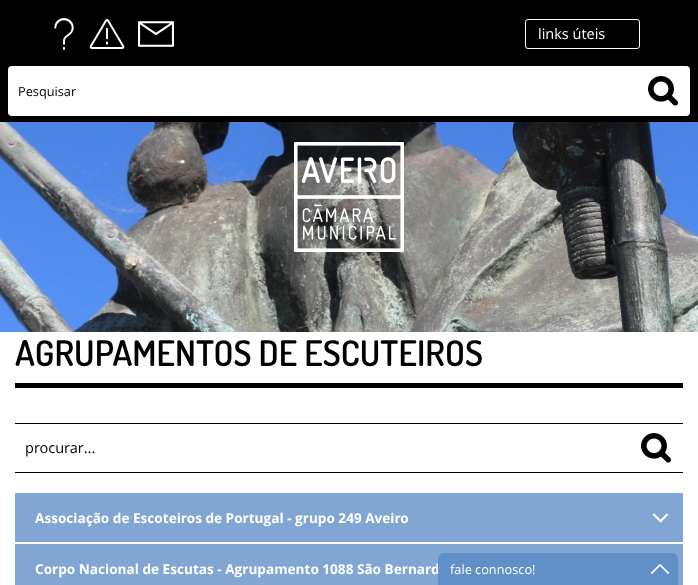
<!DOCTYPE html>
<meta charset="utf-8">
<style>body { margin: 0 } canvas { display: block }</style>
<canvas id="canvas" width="698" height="585"></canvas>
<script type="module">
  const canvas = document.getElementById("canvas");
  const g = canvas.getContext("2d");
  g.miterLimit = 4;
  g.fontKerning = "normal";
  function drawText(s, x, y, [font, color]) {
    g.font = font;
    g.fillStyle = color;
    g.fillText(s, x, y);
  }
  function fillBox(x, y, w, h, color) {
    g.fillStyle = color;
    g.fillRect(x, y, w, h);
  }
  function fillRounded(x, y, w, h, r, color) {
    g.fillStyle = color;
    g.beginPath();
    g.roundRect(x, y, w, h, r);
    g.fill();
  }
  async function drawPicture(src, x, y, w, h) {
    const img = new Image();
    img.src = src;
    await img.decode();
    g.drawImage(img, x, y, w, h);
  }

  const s1 = ["14.5px Open Sans", "#FFFFFF"];
  const s2 = ["12.75px Open Sans", "#000000"];
  const s3 = ["600 35.25px Dosis", "#000000"];
  const s4 = ["14.5px Open Sans", "#000000"];
  const s5 = ["bold 13.6px Open Sans", "#FFFFFF"];
  const s6 = ["12.75px Open Sans", "#FFFFFF"];

  fillBox(0, 0, 698, 585, "#FFFFFF");
  fillBox(0, 0, 698, 122, "#000000");
  await drawPicture("pic1.png", 54, 18, 20, 32);
  await drawPicture("pic2.png", 89, 19, 36, 30);
  await drawPicture("pic3.png", 138, 21, 36, 26);
  g.beginPath();
  g.roundRect(525.5, 19.5, 114, 29, 2.5);
  g.strokeStyle = "#FFFFFF";
  g.stroke();
  drawText("links úteis", 538, 39, s1);
  fillRounded(8, 66, 682, 50, 4, "#FFFFFF");
  drawText("Pesquisar", 18, 96, s2);
  await drawPicture("pic4.png", 648, 76, 30, 30);
  await drawPicture("pic5.png", 0, 122, 698, 210);
  await drawPicture("pic6.png", 294, 142, 110, 110);
  fillBox(15, 383, 668, 5, "#000000");
  drawText("AGRUPAMENTOS DE ESCUTEIROS", 15, 366, s3);
  fillBox(15, 423, 668, 1, "#000000");
  fillBox(15, 472, 668, 1, "#000000");
  drawText("procurar...", 25, 453, s4);
  await drawPicture("pic4.png", 641, 433, 30, 30);
  fillBox(15, 493, 668, 49, "#81A6D3");
  drawText("Associação de Escoteiros de Portugal - grupo 249 Aveiro", 35, 523, s5);
  await drawPicture("pic7.png", 653, 513, 15, 10);
  fillBox(15, 544, 668, 41, "#81A6D3");
  drawText("Corpo Nacional de Escutas - Agrupamento 1088 São Bernard", 35, 574, s5);
  g.fillStyle = "#6190C8";
  g.beginPath();
  g.roundRect(438, 553, 240, 32, [6, 6, 0, 0]);
  g.fill();
  drawText("fale connosco!", 450, 574, s6);
  await drawPicture("pic8.png", 650, 564, 20, 10);
</script>
